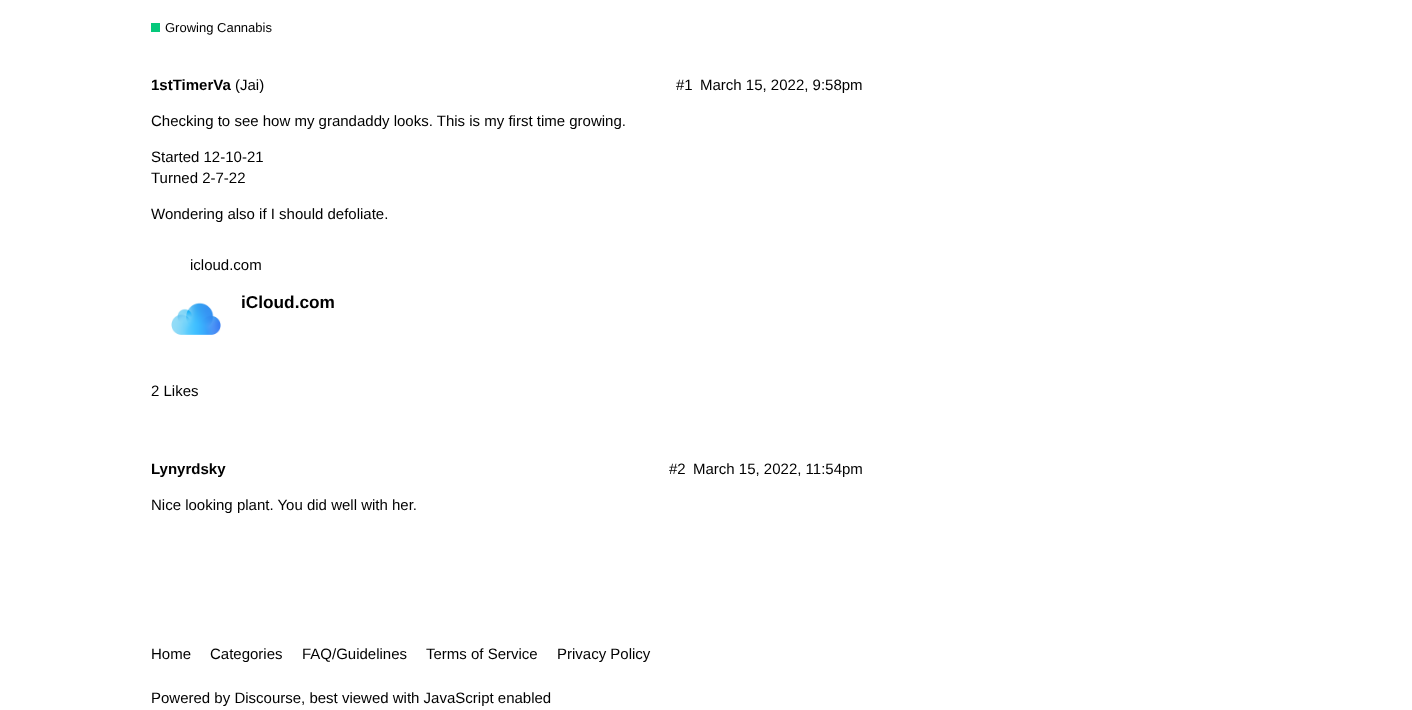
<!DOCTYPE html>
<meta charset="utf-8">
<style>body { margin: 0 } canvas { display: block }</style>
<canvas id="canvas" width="1412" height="710"></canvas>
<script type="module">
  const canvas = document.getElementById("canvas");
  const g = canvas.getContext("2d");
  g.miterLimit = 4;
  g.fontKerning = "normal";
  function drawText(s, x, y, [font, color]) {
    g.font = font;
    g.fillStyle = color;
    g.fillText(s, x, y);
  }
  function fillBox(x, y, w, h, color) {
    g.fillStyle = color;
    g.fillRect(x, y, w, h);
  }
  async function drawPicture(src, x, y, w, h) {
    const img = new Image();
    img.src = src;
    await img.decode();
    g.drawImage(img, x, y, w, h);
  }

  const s1 = ["13px Liberation Sans", "#000000"];
  const s2 = ["bold 15px Liberation Sans", "#000000"];
  const s3 = ["15px Liberation Sans", "#000000"];
  const s4 = ["bold 17.25px Liberation Sans", "#000000"];

  fillBox(0, 0, 1412, 710, "#FFFFFF");
  fillBox(151, 23, 9, 9, "#05C87B");
  drawText("Growing Cannabis", 165, 32, s1);
  drawText("1stTimerVa", 151, 90, s2);
  drawText("(Jai)", 235, 90, s3);
  drawText("#1", 676, 90, s3);
  drawText("March 15, 2022, 9:58pm", 700, 90, s3);
  drawText("Checking to see how my grandaddy looks. This is my first time growing.", 151, 126, s3);
  drawText("Started 12-10-21", 151, 162, s3);
  drawText("Turned 2-7-22", 151, 183, s3);
  drawText("Wondering also if I should defoliate.", 151, 219, s3);
  drawText("icloud.com", 190, 270, s3);
  await drawPicture("pic1.png", 171, 302, 50, 33);
  drawText("iCloud.com", 241, 308, s4);
  drawText("2 Likes", 151, 396, s3);
  drawText("Lynyrdsky", 151, 474, s2);
  drawText("#2", 669, 474, s3);
  drawText("March 15, 2022, 11:54pm", 693, 474, s3);
  drawText("Nice looking plant. You did well with her.", 151, 510, s3);
  drawText("Home", 151, 659, s3);
  drawText("Categories", 210, 659, s3);
  drawText("FAQ/Guidelines", 302, 659, s3);
  drawText("Terms of Service", 426, 659, s3);
  drawText("Privacy Policy", 557, 659, s3);
  drawText("Powered by Discourse, best viewed with JavaScript enabled", 151, 703, s3);
</script>
